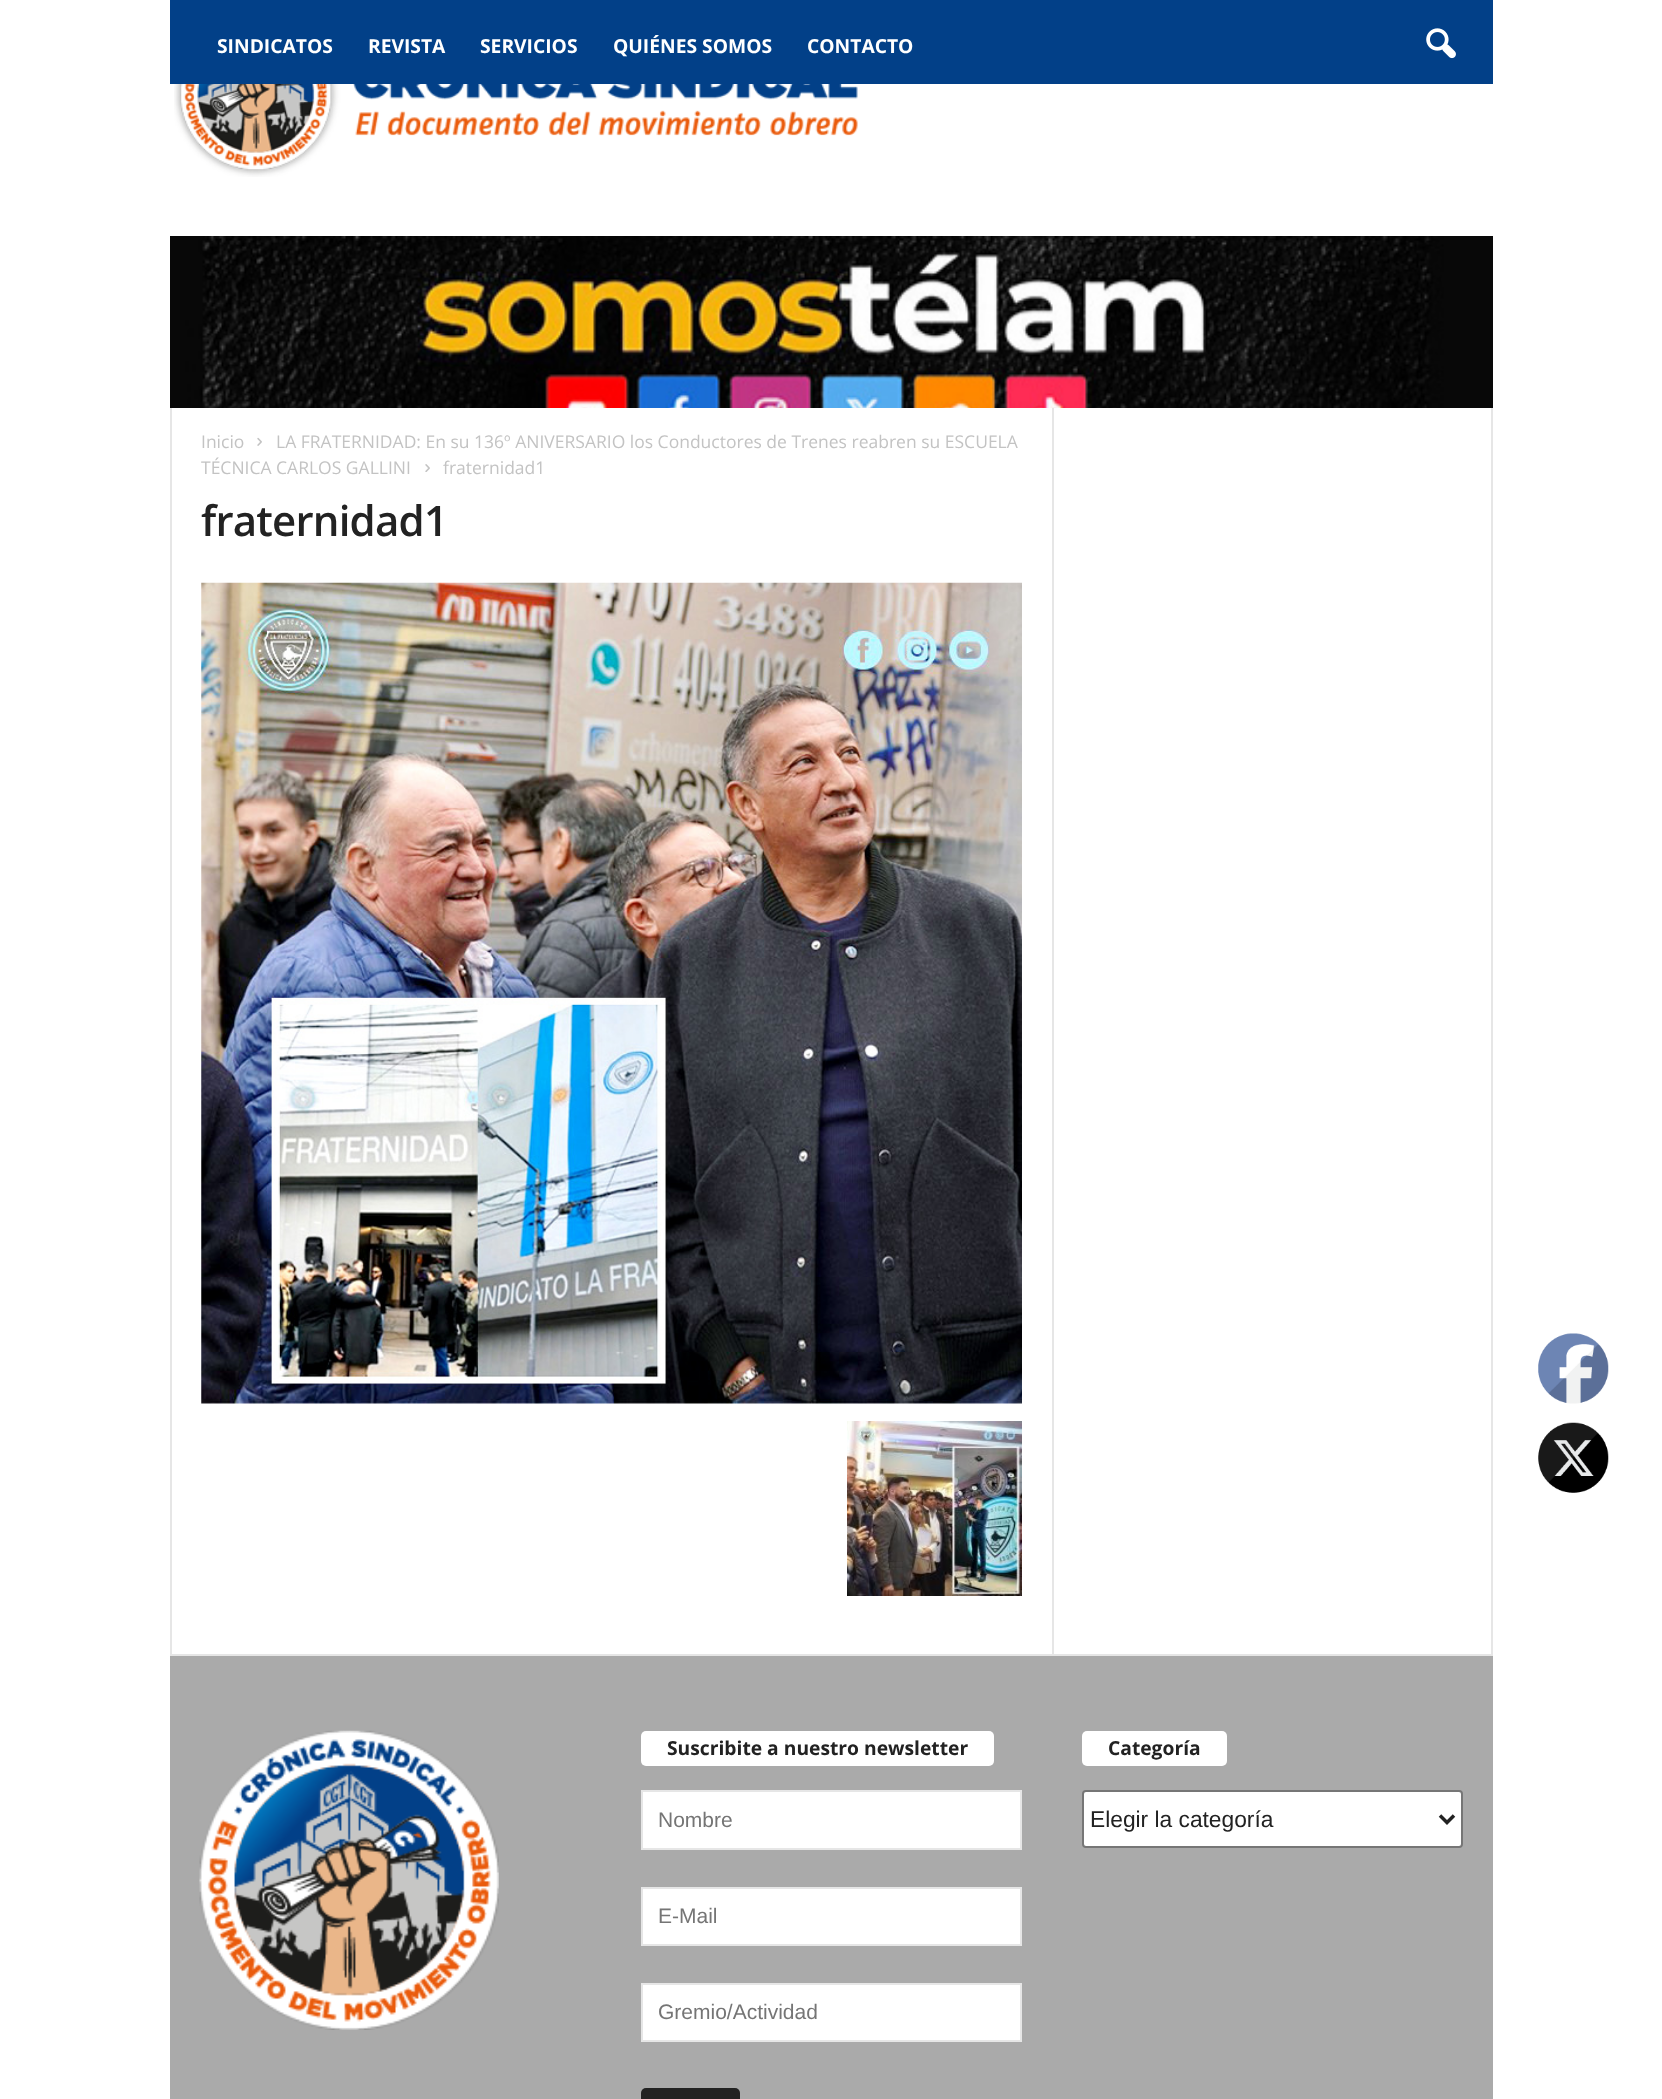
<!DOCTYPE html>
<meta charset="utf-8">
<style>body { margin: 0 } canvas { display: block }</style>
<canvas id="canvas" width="1662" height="2099"></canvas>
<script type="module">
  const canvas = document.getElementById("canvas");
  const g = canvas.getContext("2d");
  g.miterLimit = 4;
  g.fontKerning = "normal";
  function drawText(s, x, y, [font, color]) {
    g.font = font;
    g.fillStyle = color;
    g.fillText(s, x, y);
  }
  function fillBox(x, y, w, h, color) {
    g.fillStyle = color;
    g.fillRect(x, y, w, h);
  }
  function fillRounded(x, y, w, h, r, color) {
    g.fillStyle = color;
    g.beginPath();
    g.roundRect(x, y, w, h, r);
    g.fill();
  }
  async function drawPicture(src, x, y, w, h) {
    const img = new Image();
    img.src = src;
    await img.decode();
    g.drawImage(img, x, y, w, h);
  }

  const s1 = ["bold 19.25px Open Sans", "#FFFFFF"];
  const s2 = ["17.5px Open Sans", "#C3C3C3"];
  const s3 = ["600 42px Open Sans", "#222222"];
  const s4 = ["bold 19.25px Open Sans", "#222222"];
  const s5 = ["21px Liberation Sans", "#757575"];
  const s6 = ["22.75px Liberation Sans", "#222222"];

  fillBox(0, 0, 1662, 2099, "#FFFFFF");
  fillBox(170, 0, 1323, 84, "#024088");
  drawText("SINDICATOS", 217, 53, s1);
  drawText("REVISTA", 368, 53, s1);
  drawText("SERVICIOS", 480, 53, s1);
  drawText("QUIÉNES SOMOS", 613, 53, s1);
  drawText("CONTACTO", 807, 53, s1);
  await drawPicture("pic1.png", 1426, 28, 30, 31);
  await drawPicture("pic2.png", 174, 84, 684, 93);
  await drawPicture("pic3.png", 170, 236, 1323, 172);
  fillBox(170, 1654, 1323, 2, "#E6E6E6");
  fillBox(170, 408, 2, 1246, "#E6E6E6");
  drawText("Inicio", 201, 448, s2);
  await drawPicture("pic4.png", 257, 437, 5, 9);
  drawText("LA FRATERNIDAD: En su 136º ANIVERSARIO los Conductores de Trenes reabren su ESCUELA", 276, 448, s2);
  drawText("TÉCNICA CARLOS GALLINI", 201, 474, s2);
  await drawPicture("pic5.png", 425, 464, 5, 8);
  drawText("fraternidad1", 443, 474, s2);
  g.letterSpacing = "-0.8px";
  drawText("fraternidad1", 201, 536, s3);
  await drawPicture("pic6.png", 201, 582, 821, 822);
  await drawPicture("pic7.png", 847, 1421, 175, 175);
  fillBox(1052, 408, 2, 1246, "#E6E6E6");
  fillBox(1491, 408, 2, 1246, "#E6E6E6");
  fillBox(170, 1656, 1323, 443, "#AAAAAA");
  await drawPicture("pic8.png", 199, 1730, 300, 300);
  fillRounded(641, 1731, 353, 35, 5, "#FFFFFF");
  g.letterSpacing = "0px";
  drawText("Suscribite a nuestro newsletter", 667, 1755, s4);
  g.fillStyle = "#FFFFFF";
  g.beginPath();
  g.rect(642, 1791, 379, 58);
  g.fill();
  g.strokeStyle = "#E6E6E6";
  g.lineWidth = 2;
  g.stroke();
  drawText("Nombre", 658, 1827, s5);
  g.fillStyle = "#FFFFFF";
  g.beginPath();
  g.rect(642, 1888, 379, 57);
  g.fill();
  g.stroke();
  drawText("E-Mail", 658, 1923, s5);
  g.fillStyle = "#FFFFFF";
  g.beginPath();
  g.rect(642, 1984, 379, 57);
  g.fill();
  g.stroke();
  drawText("Gremio/Actividad", 658, 2019, s5);
  fillRounded(641, 2088, 99, 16, 5, "#222222");
  fillRounded(1082, 1731, 145, 35, 5, "#FFFFFF");
  drawText("Categoría", 1108, 1755, s4);
  g.fillStyle = "#FFFFFF";
  g.beginPath();
  g.roundRect(1083, 1791, 379, 56, 3);
  g.fill();
  g.strokeStyle = "#767676";
  g.stroke();
  g.beginPath();
  g.moveTo(1440, 1815.5);
  g.lineTo(1447, 1822.5);
  g.lineTo(1454, 1815.5);
  g.strokeStyle = "#222222";
  g.lineWidth = 3.5;
  g.stroke();
  drawText("Elegir la categoría", 1090, 1827, s6);
  await drawPicture("pic9.png", 1538, 1333, 71, 71);
  await drawPicture("pic10.png", 1538, 1422, 71, 71);
</script>
